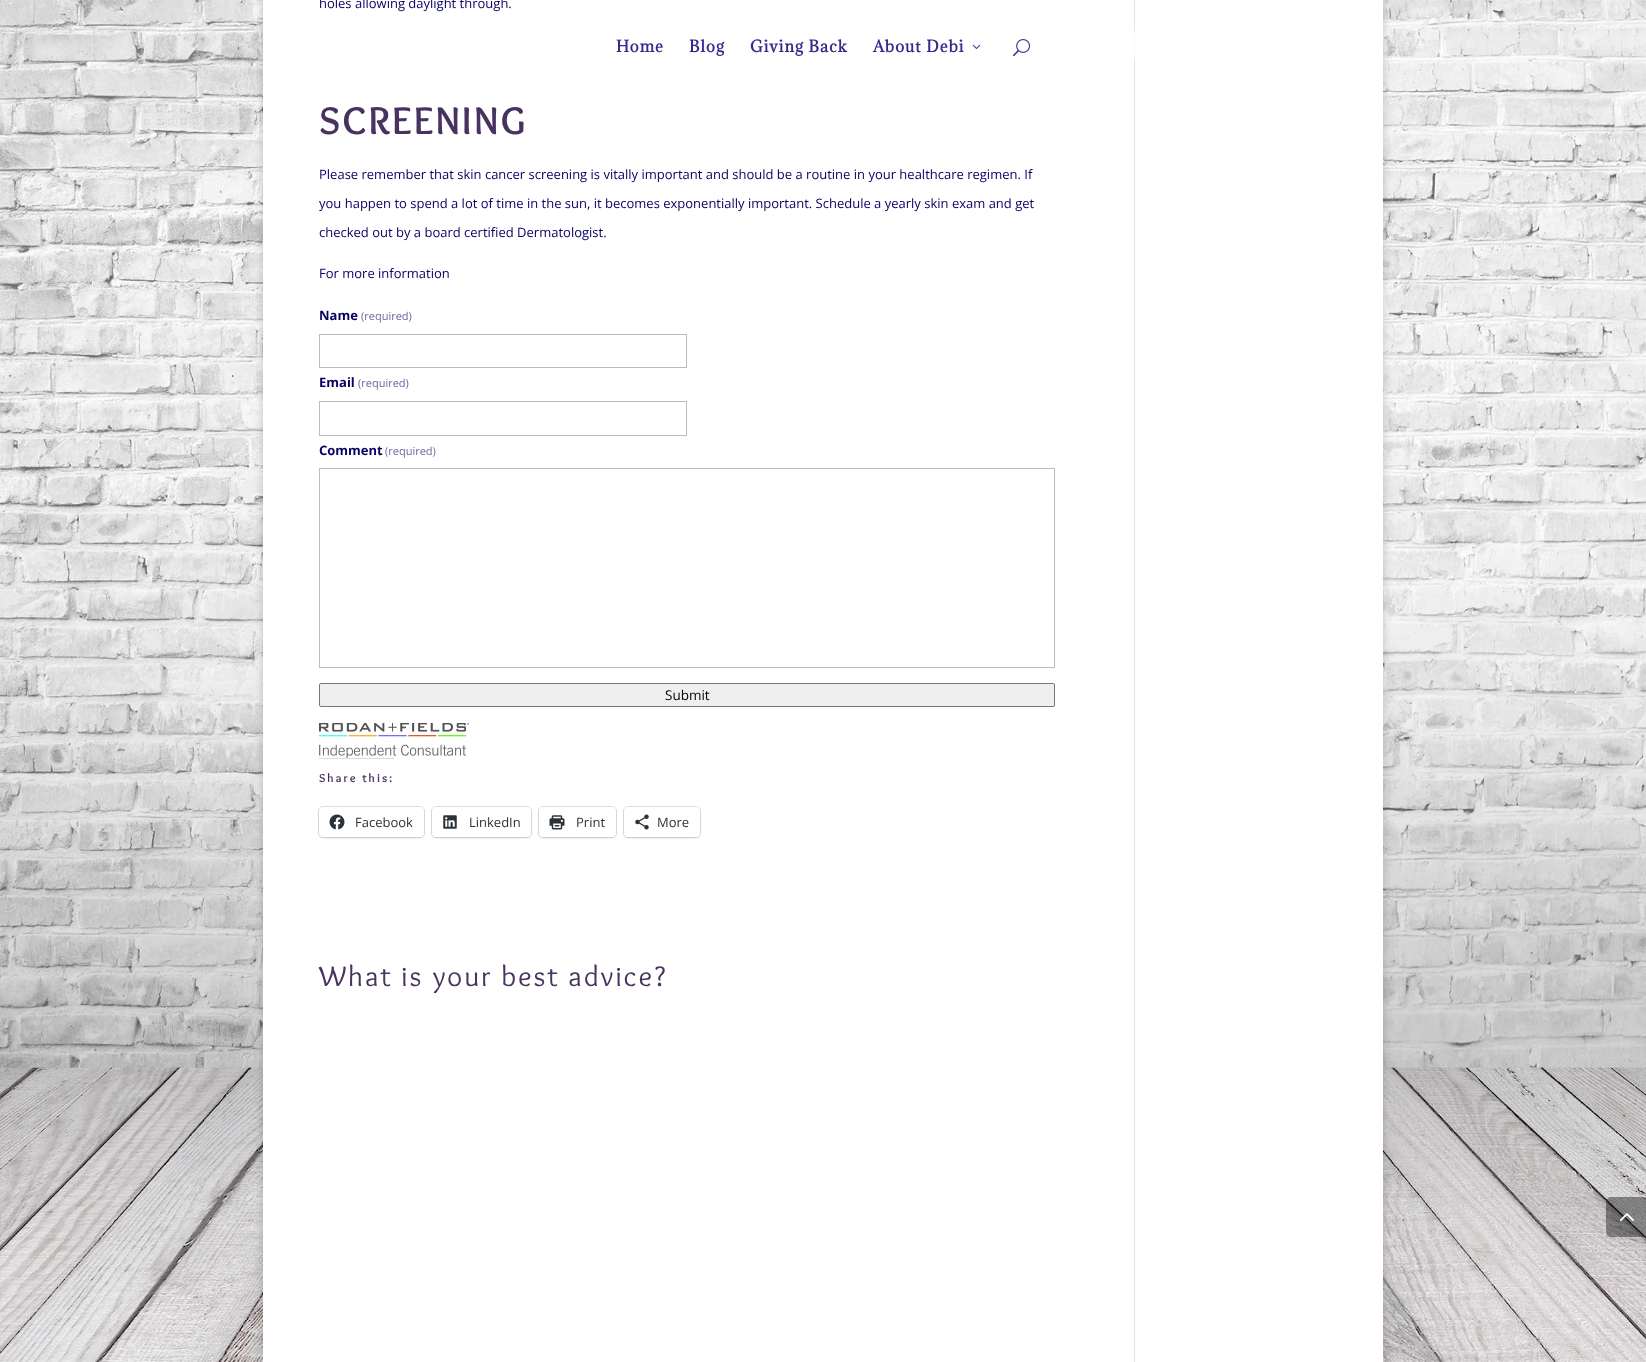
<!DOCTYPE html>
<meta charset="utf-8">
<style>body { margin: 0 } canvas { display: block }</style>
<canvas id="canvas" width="1646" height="1362"></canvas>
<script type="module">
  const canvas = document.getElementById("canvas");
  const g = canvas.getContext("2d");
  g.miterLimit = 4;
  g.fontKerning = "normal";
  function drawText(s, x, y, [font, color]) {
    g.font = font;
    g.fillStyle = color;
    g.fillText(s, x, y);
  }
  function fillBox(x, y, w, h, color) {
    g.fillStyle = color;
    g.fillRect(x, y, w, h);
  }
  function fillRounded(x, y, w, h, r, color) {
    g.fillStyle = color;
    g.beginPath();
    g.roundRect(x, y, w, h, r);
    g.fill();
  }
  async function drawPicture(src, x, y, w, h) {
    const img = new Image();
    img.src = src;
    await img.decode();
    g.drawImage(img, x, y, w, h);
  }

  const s1 = ["13px Open Sans", "#080063"];
  const s2 = ["bold 40px Overlock", "#483260"];
  const s3 = ["bold 13px Open Sans", "#080063"];
  const s4 = ["11px Open Sans", "#6B66A1"];
  const s5 = ["13.5px Open Sans", "#000000"];
  const s6 = ["bold 12px Overlock", "#483260"];
  const s7 = ["13px Open Sans", "#2C3338"];
  const s8 = ["29px Overlock", "#483260"];
  const s9 = ["bold 15px Adamina", "#342A8D"];

  fillBox(0, 0, 1646, 1362, "#FFFFFF");
  await drawPicture("pic1.png", 0, 0, 1646, 1362);
  g.fillStyle = "rgba(0, 0, 0, 0.2)";
  g.filter = "blur(5px)";
  g.beginPath();
  g.rect(263, -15, 1120, 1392);
  g.fill();
  g.filter = "none";
  fillBox(263, 0, 1120, 1362, "#FFFFFF");
  drawText("holes allowing daylight through.", 319, 8, s1);
  g.letterSpacing = "2px";
  drawText("SCREENING", 319, 134, s2);
  g.letterSpacing = "0px";
  drawText("Please remember that skin cancer screening is vitally important and should be a routine in your healthcare regimen. If", 319, 179, s1);
  drawText("you happen to spend a lot of time in the sun, it becomes exponentially important. Schedule a yearly skin exam and get", 319, 208, s1);
  drawText("checked out by a board certified Dermatologist.", 319, 237, s1);
  drawText("For more information", 319, 278, s1);
  drawText("Name", 319, 320, s3);
  drawText("(required)", 361, 320, s4);
  g.strokeStyle = "#BBBBBB";
  g.strokeRect(319.5, 334.5, 367, 33);
  drawText("Email", 319, 387, s3);
  drawText("(required)", 358, 387, s4);
  g.strokeRect(319.5, 401.5, 367, 34);
  drawText("Comment", 319, 455, s3);
  drawText("(required)", 385, 455, s4);
  g.strokeRect(319.5, 468.5, 735, 199);
  g.fillStyle = "#EFEFEF";
  g.beginPath();
  g.roundRect(319.5, 683.5, 735, 23, 1.5);
  g.fill();
  g.strokeStyle = "#767676";
  g.stroke();
  drawText("Submit", 665, 700, s5);
  await drawPicture("pic2.png", 319, 723, 150, 35);
  fillBox(319, 758, 75, 1, "#DCDCDE");
  g.letterSpacing = "2px";
  drawText("Share this:", 319, 782, s6);
  g.beginPath();
  g.roundRect(318.5, 806.5, 106, 31, 4.5);
  g.strokeStyle = "#E0E0E0";
  g.stroke();
  g.fillStyle = "rgba(0, 0, 0, 0.12)";
  g.filter = "blur(1px)";
  g.beginPath();
  g.roundRect(319, 808, 105, 30, 4);
  g.fill();
  g.filter = "none";
  fillRounded(319, 807, 105, 30, 4, "#FFFFFF");
  await drawPicture("pic3.png", 329, 814, 16, 16);
  g.letterSpacing = "0px";
  drawText("Facebook", 355, 827, s7);
  g.beginPath();
  g.roundRect(431.5, 806.5, 100, 31, 4.5);
  g.stroke();
  g.fillStyle = "rgba(0, 0, 0, 0.12)";
  g.filter = "blur(1px)";
  g.beginPath();
  g.roundRect(432, 808, 99, 30, 4);
  g.fill();
  g.filter = "none";
  fillRounded(432, 807, 99, 30, 4, "#FFFFFF");
  await drawPicture("pic4.png", 443, 815, 14, 14);
  drawText("LinkedIn", 469, 827, s7);
  g.beginPath();
  g.roundRect(538.5, 806.5, 78, 31, 4.5);
  g.stroke();
  g.fillStyle = "rgba(0, 0, 0, 0.12)";
  g.filter = "blur(1px)";
  g.beginPath();
  g.roundRect(539, 808, 77, 30, 4);
  g.fill();
  g.filter = "none";
  fillRounded(539, 807, 77, 30, 4, "#FFFFFF");
  await drawPicture("pic5.png", 549, 815, 16, 15);
  drawText("Print", 576, 827, s7);
  g.beginPath();
  g.roundRect(623.5, 806.5, 77, 31, 4.5);
  g.stroke();
  g.fillStyle = "rgba(0, 0, 0, 0.12)";
  g.filter = "blur(1px)";
  g.beginPath();
  g.roundRect(624, 808, 76, 30, 4);
  g.fill();
  g.filter = "none";
  fillRounded(624, 807, 76, 30, 4, "#FFFFFF");
  await drawPicture("pic6.png", 635, 814, 14, 16);
  drawText("More", 657, 827, s7);
  g.letterSpacing = "2px";
  drawText("What is your best advice?", 319, 986, s8);
  fillBox(1134, 0, 1, 1362, "#E2E2E2");
  g.fillStyle = "rgba(0, 0, 0, 0.4)";
  g.beginPath();
  g.roundRect(1606, 1197, 40, 40, [5, 0, 0, 5]);
  g.fill();
  await drawPicture("pic7.png", 1619, 1213, 15, 9);
  fillBox(1134, 31, 1, 28, "rgba(255, 255, 255, 0.82)");
  g.letterSpacing = "1px";
  drawText("Home", 616, 52, s9);
  drawText("Blog", 689, 52, s9);
  drawText("Giving Back", 750, 52, s9);
  drawText("About Debi", 873, 52, s9);
  await drawPicture("pic8.png", 972, 44, 9, 5);
  await drawPicture("pic9.png", 1013, 39, 17, 18);
</script>
